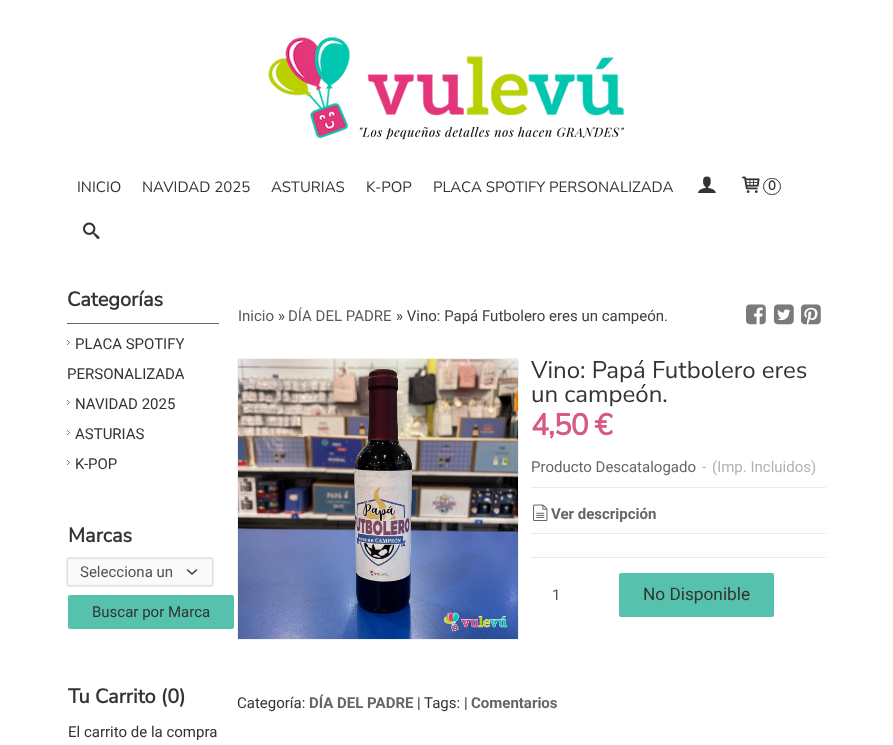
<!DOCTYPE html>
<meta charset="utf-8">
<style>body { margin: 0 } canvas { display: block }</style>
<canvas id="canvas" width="893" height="745"></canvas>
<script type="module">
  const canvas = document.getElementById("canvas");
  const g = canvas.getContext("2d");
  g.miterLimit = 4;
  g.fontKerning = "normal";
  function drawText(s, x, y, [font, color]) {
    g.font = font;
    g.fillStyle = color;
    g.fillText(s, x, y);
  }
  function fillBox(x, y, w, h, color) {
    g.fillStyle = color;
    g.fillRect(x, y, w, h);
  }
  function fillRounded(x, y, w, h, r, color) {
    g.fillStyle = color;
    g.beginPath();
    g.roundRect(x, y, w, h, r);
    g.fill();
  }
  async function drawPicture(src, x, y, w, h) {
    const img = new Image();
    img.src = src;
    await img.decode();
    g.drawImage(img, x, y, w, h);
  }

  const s1 = ["200 15px Nunito Sans", "#333333"];
  const s2 = ["bold 13px Nunito Sans", "#333333"];
  const s3 = ["bold 20px Nunito Sans", "#333333"];
  const s4 = ["15px Roboto", "#333333"];
  const s5 = ["15px Roboto", "#525252"];
  const s6 = ["15px Roboto", "#595959"];
  const s7 = ["15px Roboto", "#404040"];
  const s8 = ["200 24px Nunito Sans", "#333333"];
  const s9 = ["bold 30px Nunito Sans", "#D75987"];
  const s10 = ["15px Roboto", "#666666"];
  const s11 = ["15px Roboto", "#B3B3B3"];
  const s12 = ["bold 15px Roboto", "#666666"];
  const s13 = ["17.25px Roboto", "#333333"];

  fillBox(0, 0, 893, 745, "#FFFFFF");
  await drawPicture("pic1.png", 268, 37, 357, 103);
  drawText("INICIO", 77, 192, s1);
  drawText("NAVIDAD 2025", 142, 192, s1);
  drawText("ASTURIAS", 271, 192, s1);
  drawText("K-POP", 366, 192, s1);
  drawText("PLACA SPOTIFY PERSONALIZADA", 433, 192, s1);
  await drawPicture("pic2.png", 698, 176, 18, 17);
  await drawPicture("pic3.png", 742, 176, 18, 17);
  g.beginPath();
  g.roundRect(763.5, 178.5, 17, 16, 8);
  g.strokeStyle = "#333333";
  g.stroke();
  drawText("0", 768, 190, s2);
  await drawPicture("pic4.png", 83, 222, 17, 17);
  fillBox(67, 323, 152, 1, "#666666");
  drawText("Categorías", 67, 306, s3);
  await drawPicture("pic5.png", 67, 340, 3, 5);
  drawText("PLACA SPOTIFY", 75, 349, s4);
  drawText("PERSONALIZADA", 67, 379, s4);
  await drawPicture("pic5.png", 67, 400, 3, 5);
  drawText("NAVIDAD 2025", 75, 409, s4);
  await drawPicture("pic5.png", 67, 430, 3, 5);
  drawText("ASTURIAS", 75, 439, s4);
  await drawPicture("pic5.png", 67, 460, 3, 5);
  drawText("K-POP", 75, 469, s4);
  drawText("Marcas", 68, 542, s3);
  g.fillStyle = "rgba(0, 0, 0, 0.2)";
  g.filter = "blur(1px)";
  g.beginPath();
  g.rect(67, 558, 146, 28);
  g.fill();
  g.filter = "none";
  fillBox(68, 559, 144, 26, "#FAFAFA");
  g.beginPath();
  g.moveTo(187.5, 570);
  g.lineTo(192, 574);
  g.lineTo(196.5, 570);
  g.strokeStyle = "#343A40";
  g.lineWidth = 1.5;
  g.lineCap = "round";
  g.lineJoin = "round";
  g.stroke();
  drawText("Selecciona un", 80, 577, s5);
  fillRounded(68, 595, 166, 34, 2, "#56C2AE");
  drawText("Buscar por Marca", 92, 617, s4);
  drawText("Tu Carrito (0)", 68, 703, s3);
  drawText("El carrito de la compra", 68, 737, s4);
  drawText("Inicio", 238, 321, s6);
  drawText("»", 278, 321, s7);
  drawText("DÍA DEL PADRE", 288, 321, s6);
  drawText("» Vino: Papá Futbolero eres un campeón.", 396, 321, s7);
  await drawPicture("pic6.png", 746, 304, 20, 21);
  await drawPicture("pic7.png", 773, 304, 21, 21);
  await drawPicture("pic8.png", 801, 304, 20, 21);
  g.strokeStyle = "#F2F2F2";
  g.lineWidth = 1;
  g.lineJoin = "miter";
  g.strokeRect(237.5, 358.5, 281, 281);
  await drawPicture("pic9.png", 238, 359, 280, 280);
  drawText("Vino: Papá Futbolero eres", 531, 378, s8);
  drawText("un campeón.", 531, 402, s8);
  g.letterSpacing = "-1px";
  drawText("4,50 €", 531, 435, s9);
  g.letterSpacing = "0px";
  drawText("Producto Descatalogado", 531, 472, s10);
  drawText("-", 702, 472, s11);
  drawText("(Imp. Incluidos)", 712, 472, s11);
  g.beginPath();
  g.moveTo(531, 487.5);
  g.lineTo(826, 487.5);
  g.strokeStyle = "#D9D9D9";
  g.lineCap = "butt";
  g.setLineDash([1, 1]);
  g.stroke();
  await drawPicture("pic10.png", 533, 504, 15, 17);
  drawText("Ver descripción", 551, 519, s12);
  g.beginPath();
  g.moveTo(531, 533.5);
  g.lineTo(826, 533.5);
  g.stroke();
  g.beginPath();
  g.moveTo(531, 557.5);
  g.lineTo(826, 557.5);
  g.stroke();
  drawText("1", 552, 600, s5);
  fillRounded(619, 573, 155, 44, 2, "#56C2AE");
  drawText("No Disponible", 643, 600, s13);
  drawText("Categoría:", 237, 708, s4);
  drawText("DÍA DEL PADRE", 309, 708, s12);
  drawText("| Tags: |", 417, 708, s4);
  drawText("Comentarios", 471, 708, s12);
</script>
